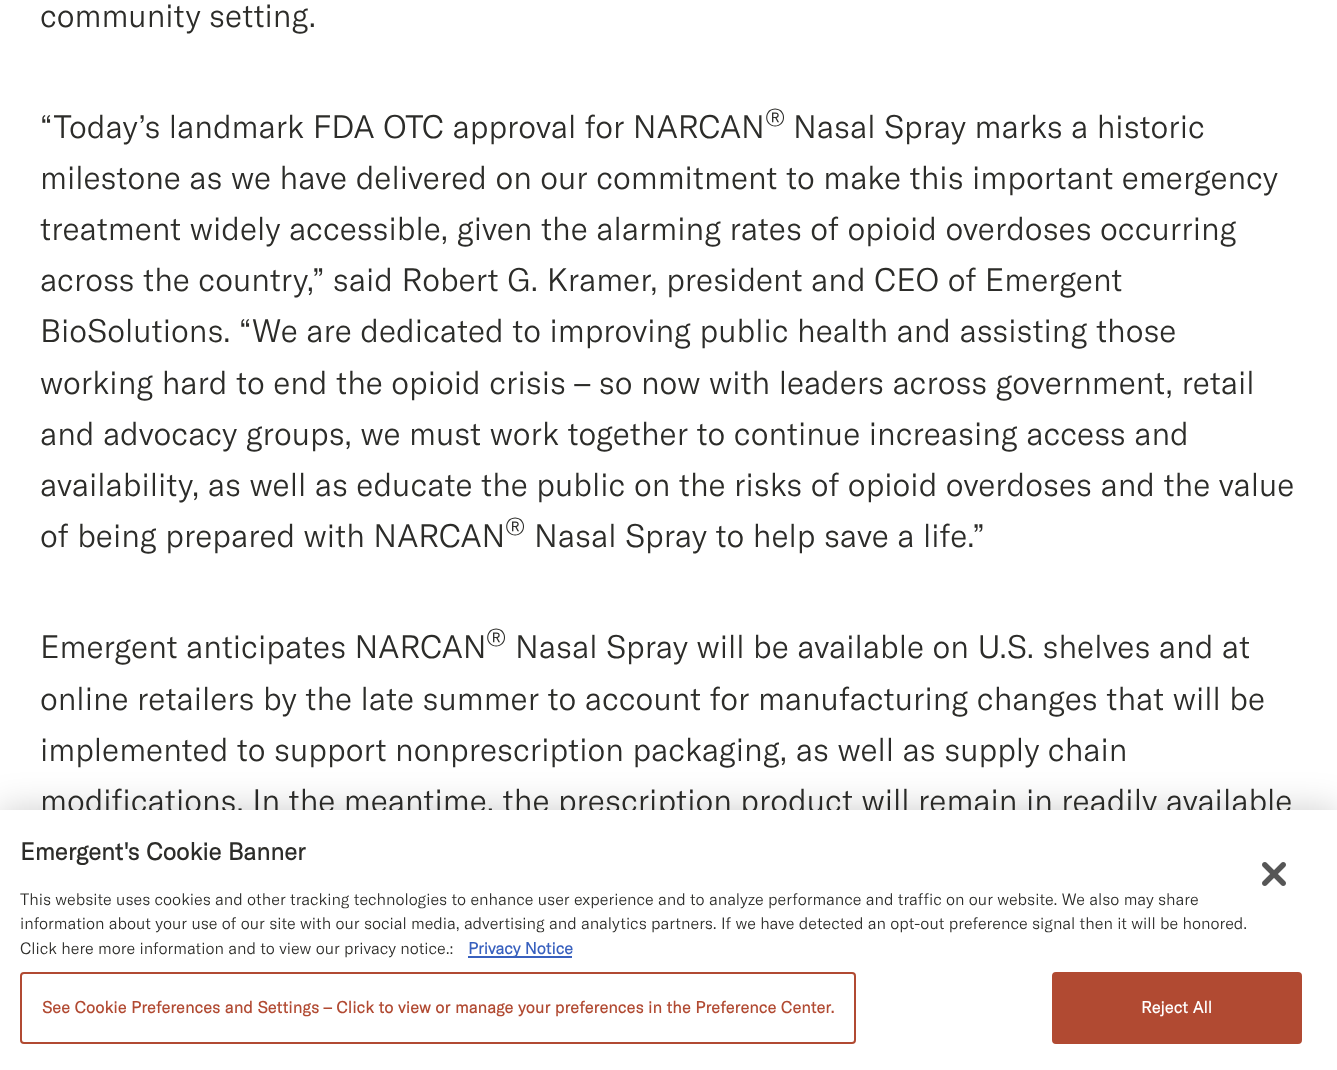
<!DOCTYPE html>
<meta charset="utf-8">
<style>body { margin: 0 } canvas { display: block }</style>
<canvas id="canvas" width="1337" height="1070"></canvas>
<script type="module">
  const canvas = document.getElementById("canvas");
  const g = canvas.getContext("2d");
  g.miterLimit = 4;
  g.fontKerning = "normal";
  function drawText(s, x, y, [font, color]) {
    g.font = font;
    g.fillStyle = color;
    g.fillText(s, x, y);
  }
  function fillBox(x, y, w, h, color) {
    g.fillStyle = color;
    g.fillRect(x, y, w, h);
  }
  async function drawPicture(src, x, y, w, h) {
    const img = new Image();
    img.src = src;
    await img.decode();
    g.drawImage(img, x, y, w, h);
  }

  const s1 = ["300 32px GT America", "#2C2C29"];
  const s2 = ["300 24px GT America", "#2C2C29"];
  const s3 = ["bold 24px GT America", "#2C2C29"];
  const s4 = ["300 16.25px GT America", "#2C2C29"];
  const s5 = ["bold 16.25px GT America", "#3860BE"];
  const s6 = ["bold 16.25px GT America", "#B14A32"];
  const s7 = ["bold 16.25px GT America", "#FFFFFF"];

  fillBox(0, 0, 1337, 1070, "#FFFFFF");
  drawText("community setting.", 40, 27, s1);
  drawText("“Today’s landmark FDA OTC approval for NARCAN", 40, 138, s1);
  drawText("®", 765, 126, s2);
  drawText("Nasal Spray marks a historic", 793, 138, s1);
  drawText("milestone as we have delivered on our commitment to make this important emergency", 40, 189, s1);
  drawText("treatment widely accessible, given the alarming rates of opioid overdoses occurring", 40, 240, s1);
  drawText("across the country,” said Robert G. Kramer, president and CEO of Emergent", 40, 291, s1);
  drawText("BioSolutions. “We are dedicated to improving public health and assisting those", 40, 342, s1);
  drawText("working hard to end the opioid crisis – so now with leaders across government, retail", 40, 394, s1);
  drawText("and advocacy groups, we must work together to continue increasing access and", 40, 445, s1);
  drawText("availability, as well as educate the public on the risks of opioid overdoses and the value", 40, 496, s1);
  drawText("of being prepared with NARCAN", 40, 547, s1);
  drawText("®", 505, 535, s2);
  drawText("Nasal Spray to help save a life.”", 534, 547, s1);
  drawText("Emergent anticipates NARCAN", 40, 658, s1);
  drawText("®", 486, 646, s2);
  drawText("Nasal Spray will be available on U.S. shelves and at", 515, 658, s1);
  drawText("online retailers by the late summer to account for manufacturing changes that will be", 40, 710, s1);
  drawText("implemented to support nonprescription packaging, as well as supply chain", 40, 761, s1);
  drawText("modifications. In the meantime, the prescription product will remain in readily available", 40, 812, s1);
  g.fillStyle = "rgba(0, 0, 0, 0.2)";
  g.filter = "blur(18px)";
  g.beginPath();
  g.rect(0, 810, 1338, 260);
  g.fill();
  g.filter = "none";
  fillBox(0, 810, 1337, 260, "#FFFFFF");
  drawText("Emergent's Cookie Banner", 20, 860, s3);
  drawText("This website uses cookies and other tracking technologies to enhance user experience and to analyze performance and traffic on our website. We also may share", 20, 905, s4);
  drawText("information about your use of our site with our social media, advertising and analytics partners. If we have detected an opt-out preference signal then it will be honored.", 20, 929, s4);
  drawText("Click here more information and to view our privacy notice.:", 20, 954, s4);
  fillBox(468, 956, 104, 2, "#3860BE");
  drawText("Privacy Notice", 468, 954, s5);
  g.beginPath();
  g.roundRect(21, 973, 834, 70, 3);
  g.strokeStyle = "#B14A32";
  g.lineWidth = 2;
  g.stroke();
  g.letterSpacing = "0.16px";
  drawText("See Cookie Preferences and Settings – Click to view or manage your preferences in the Preference Center.", 42, 1013, s6);
  g.beginPath();
  g.roundRect(1053, 973, 248, 70, 3);
  g.fill();
  g.stroke();
  drawText("Reject All", 1141, 1013, s7);
  await drawPicture("pic1.png", 1262, 862, 24, 24);
</script>
